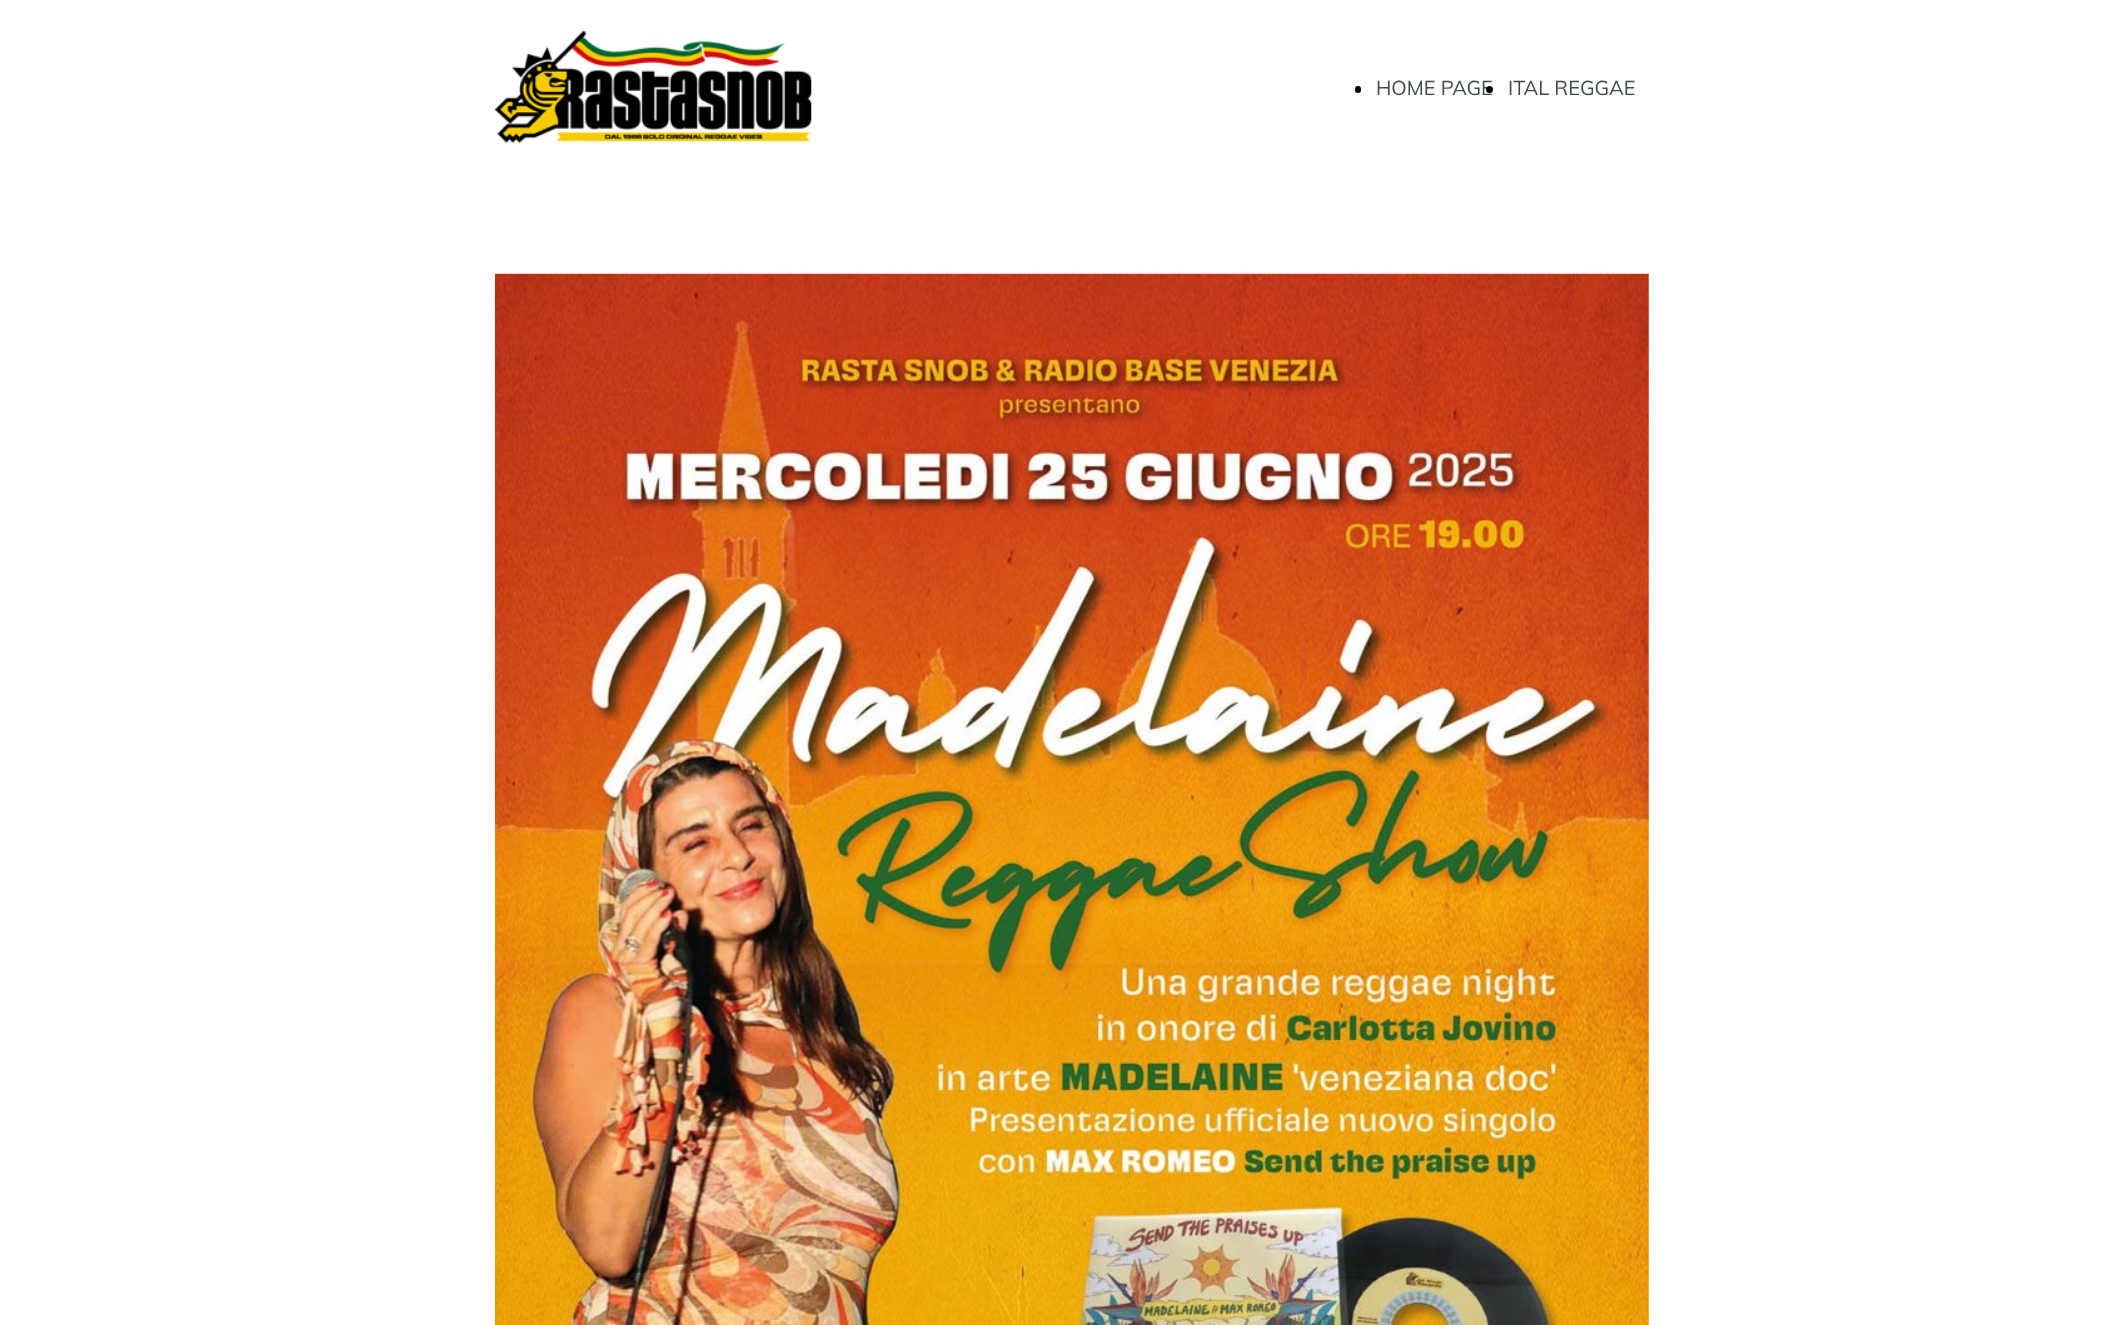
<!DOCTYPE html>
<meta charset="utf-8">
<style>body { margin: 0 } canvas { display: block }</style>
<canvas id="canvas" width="2110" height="1325"></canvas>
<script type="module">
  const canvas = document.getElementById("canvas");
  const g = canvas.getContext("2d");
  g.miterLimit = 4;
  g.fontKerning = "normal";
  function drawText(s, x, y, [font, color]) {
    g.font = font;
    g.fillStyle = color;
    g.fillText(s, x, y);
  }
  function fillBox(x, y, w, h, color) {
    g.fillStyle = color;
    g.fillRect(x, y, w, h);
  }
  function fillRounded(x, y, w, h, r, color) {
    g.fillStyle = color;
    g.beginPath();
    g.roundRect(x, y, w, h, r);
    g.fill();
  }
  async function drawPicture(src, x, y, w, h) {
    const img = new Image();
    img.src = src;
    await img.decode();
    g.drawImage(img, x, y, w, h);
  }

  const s1 = ["20px Muli", "#404A44"];

  fillBox(0, 0, 2110, 1325, "#FFFFFF");
  await drawPicture("pic1.png", 495, 31, 317, 112);
  fillRounded(1355, 86, 6, 7, 3, "#000000");
  drawText("HOME PAGE", 1376, 95, s1);
  g.fillStyle = "#000000";
  g.beginPath();
  g.arc(1489.5, 89.5, 3.5, 0, Math.PI * 2);
  g.fill();
  drawText("ITAL REGGAE", 1508, 95, s1);
  await drawPicture("pic2.png", 495, 273, 1154, 1052);
</script>
